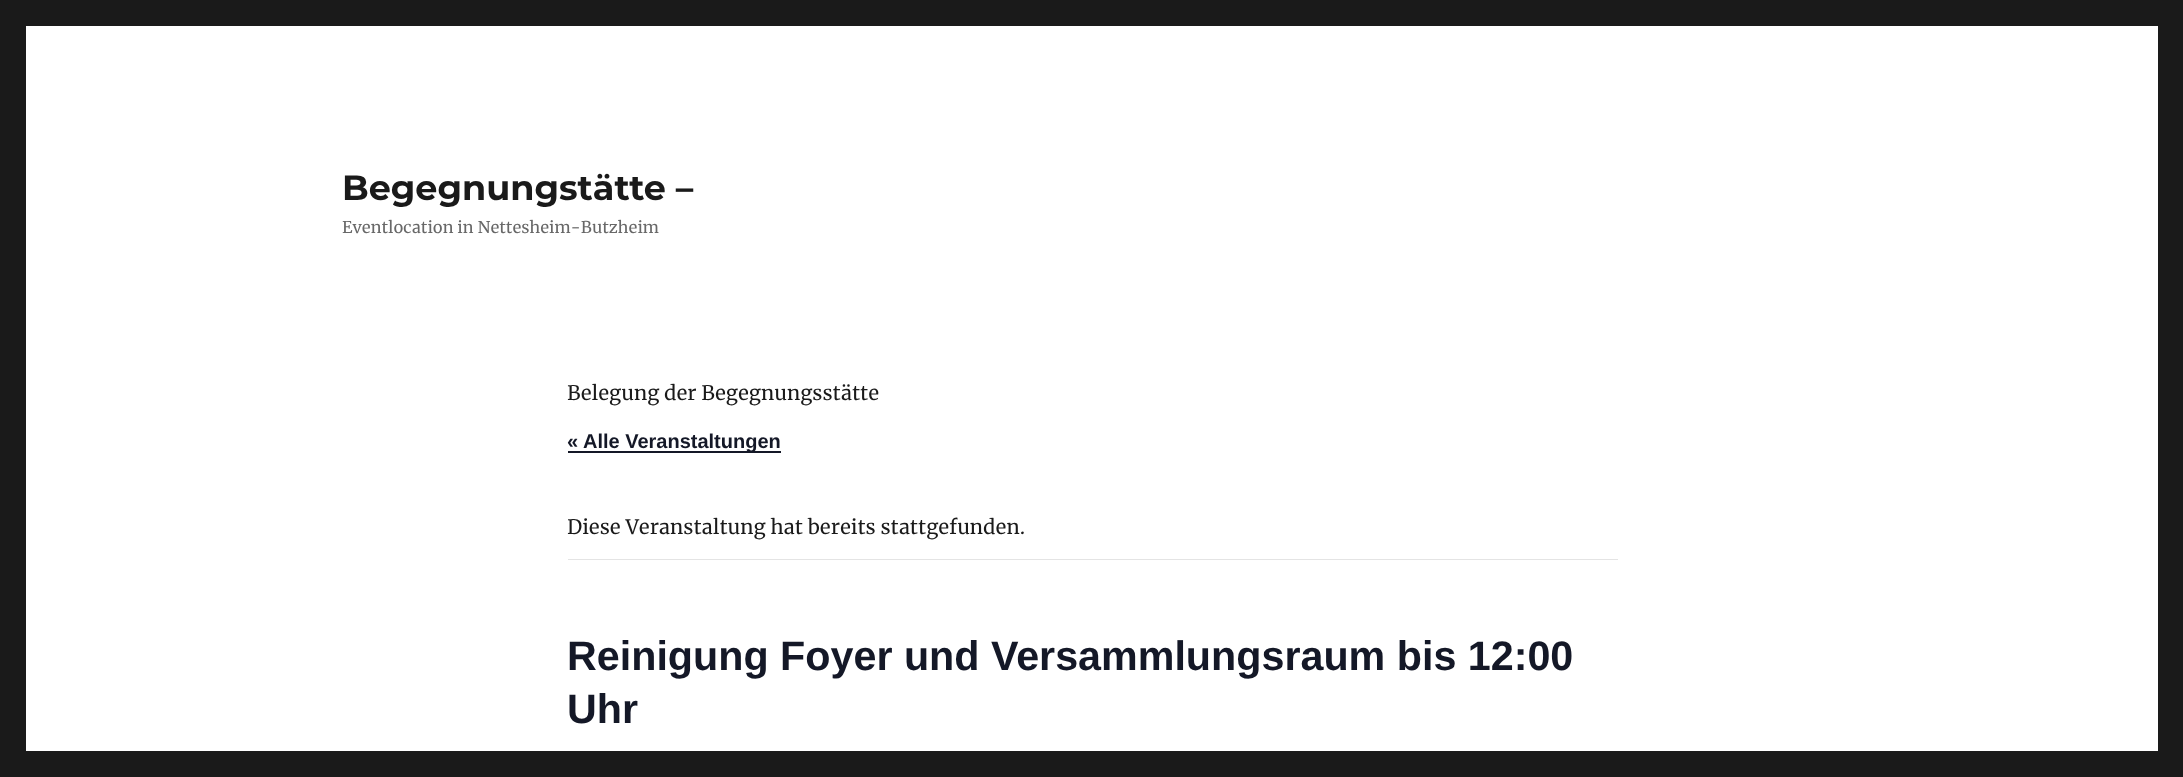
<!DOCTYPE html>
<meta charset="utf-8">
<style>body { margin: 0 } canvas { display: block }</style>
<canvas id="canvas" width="2183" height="777"></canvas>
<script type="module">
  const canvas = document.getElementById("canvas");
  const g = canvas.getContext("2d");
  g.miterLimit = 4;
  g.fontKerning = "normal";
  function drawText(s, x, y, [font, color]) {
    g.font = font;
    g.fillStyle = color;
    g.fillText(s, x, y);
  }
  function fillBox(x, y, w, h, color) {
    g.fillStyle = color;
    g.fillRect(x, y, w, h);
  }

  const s1 = ["100 35px Montserrat", "#1A1A1A"];
  const s2 = ["16.25px Merriweather", "#686868"];
  const s3 = ["20px Merriweather", "#1A1A1A"];
  const s4 = ["bold 20px Liberation Sans", "#141827"];
  const s5 = ["bold 41.25px Liberation Sans", "#141827"];

  fillBox(0, 0, 2183, 777, "#1A1A1A");
  fillBox(26, 26, 2132, 725, "#FFFFFF");
  drawText("Begegnungstätte –", 342, 200, s1);
  drawText("Eventlocation in Nettesheim-Butzheim", 342, 233, s2);
  drawText("Belegung der Begegnungsstätte", 567, 400, s3);
  fillBox(568, 451, 213, 2, "#141827");
  drawText("« Alle Veranstaltungen", 567, 448, s4);
  fillBox(568, 559, 1050, 1, "#E4E4E4");
  drawText("Diese Veranstaltung hat bereits stattgefunden.", 567, 534, s3);
  drawText("Reinigung Foyer und Versammlungsraum bis 12:00", 567, 670, s5);
  drawText("Uhr", 567, 723, s5);
</script>
